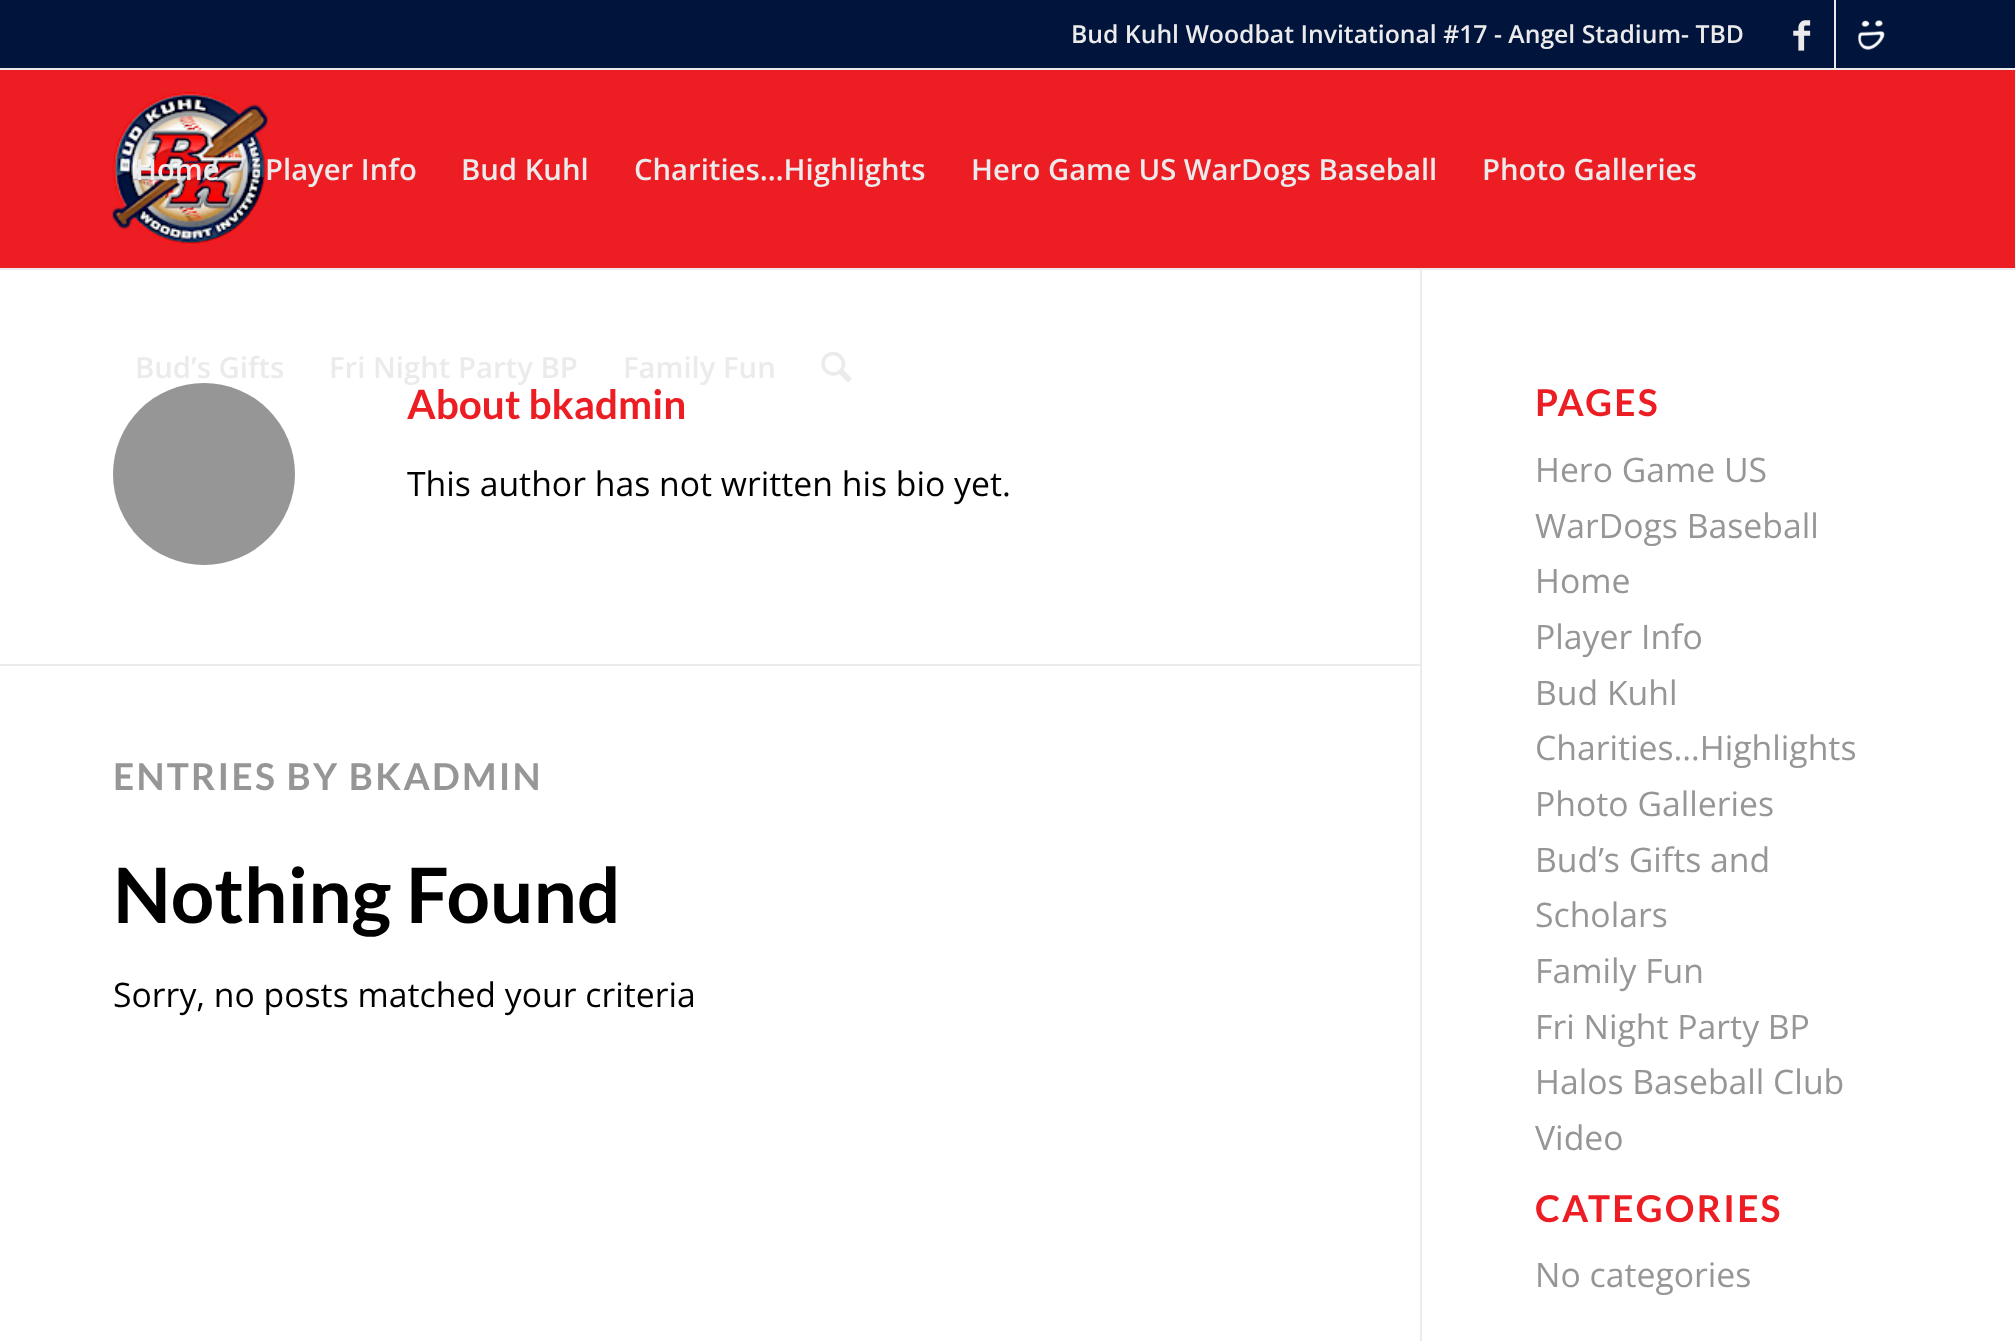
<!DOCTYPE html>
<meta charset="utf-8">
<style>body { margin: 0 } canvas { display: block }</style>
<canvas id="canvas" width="2015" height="1341"></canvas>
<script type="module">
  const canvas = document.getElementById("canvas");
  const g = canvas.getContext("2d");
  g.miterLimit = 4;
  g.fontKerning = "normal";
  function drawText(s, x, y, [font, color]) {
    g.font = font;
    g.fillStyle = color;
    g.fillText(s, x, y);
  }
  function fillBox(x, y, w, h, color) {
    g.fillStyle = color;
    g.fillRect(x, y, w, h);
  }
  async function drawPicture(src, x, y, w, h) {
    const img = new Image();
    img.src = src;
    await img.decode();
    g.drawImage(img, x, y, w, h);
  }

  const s1 = ["600 24.75px Open Sans", "#EBEBEB"];
  const s2 = ["600 29.25px Open Sans", "#EBEBEB"];
  const s3 = ["bold 40.5px Lato", "#ED1D24"];
  const s4 = ["33.75px Open Sans", "#000000"];
  const s5 = ["bold 37.1px Lato", "#969696"];
  const s6 = ["bold 76.5px Lato", "#000000"];
  const s7 = ["bold 37.1px Lato", "#ED1D24"];
  const s8 = ["33.75px Open Sans", "#969696"];

  fillBox(0, 0, 2015, 1341, "#FFFFFF");
  fillBox(0, 0, 2015, 68, "#00143C");
  fillBox(0, 68, 2015, 2, "#EBEBEB");
  drawText("Bud Kuhl Woodbat Invitational #17 - Angel Stadium- TBD", 1071, 43, s1);
  fillBox(1834, 0, 2, 68, "#EBEBEB");
  await drawPicture("pic1.png", 1793, 20, 18, 31);
  await drawPicture("pic2.png", 1858, 20, 27, 30);
  fillBox(0, 70, 2015, 198, "#ED1D24");
  fillBox(0, 268, 2015, 2, "#EBEBEB");
  await drawPicture("pic3.png", 112, 92, 156, 153);
  drawText("Home", 135, 180, s2);
  drawText("Player Info", 265, 180, s2);
  drawText("Bud Kuhl", 461, 180, s2);
  drawText("Charities…Highlights", 634, 180, s2);
  drawText("Hero Game US WarDogs Baseball", 971, 180, s2);
  drawText("Photo Galleries", 1482, 180, s2);
  drawText("Bud’s Gifts", 135, 378, s2);
  drawText("Fri Night Party BP", 329, 378, s2);
  drawText("Family Fun", 623, 378, s2);
  await drawPicture("pic4.png", 821, 351, 31, 31);
  g.fillStyle = "#969696";
  g.beginPath();
  g.arc(204, 474, 91, 0, Math.PI * 2);
  g.fill();
  drawText("About bkadmin", 407, 419, s3);
  drawText("This author has not written his bio yet.", 407, 496, s4);
  fillBox(0, 664, 1420, 2, "#EBEBEB");
  g.letterSpacing = "2.25px";
  drawText("ENTRIES BY BKADMIN", 113, 790, s5);
  g.letterSpacing = "0px";
  drawText("Nothing Found", 113, 923, s6);
  drawText("Sorry, no posts matched your criteria", 113, 1007, s4);
  fillBox(1420, 270, 2, 1071, "#EBEBEB");
  g.letterSpacing = "2.25px";
  drawText("PAGES", 1535, 416, s7);
  g.letterSpacing = "0px";
  drawText("Hero Game US", 1535, 482, s8);
  drawText("WarDogs Baseball", 1535, 538, s8);
  drawText("Home", 1535, 593, s8);
  drawText("Player Info", 1535, 649, s8);
  drawText("Bud Kuhl", 1535, 705, s8);
  drawText("Charities…Highlights", 1535, 760, s8);
  drawText("Photo Galleries", 1535, 816, s8);
  drawText("Bud’s Gifts and", 1535, 872, s8);
  drawText("Scholars", 1535, 927, s8);
  drawText("Family Fun", 1535, 983, s8);
  drawText("Fri Night Party BP", 1535, 1039, s8);
  drawText("Halos Baseball Club", 1535, 1094, s8);
  drawText("Video", 1535, 1150, s8);
  g.letterSpacing = "2.25px";
  drawText("CATEGORIES", 1535, 1222, s7);
  g.letterSpacing = "0px";
  drawText("No categories", 1535, 1287, s8);
</script>
